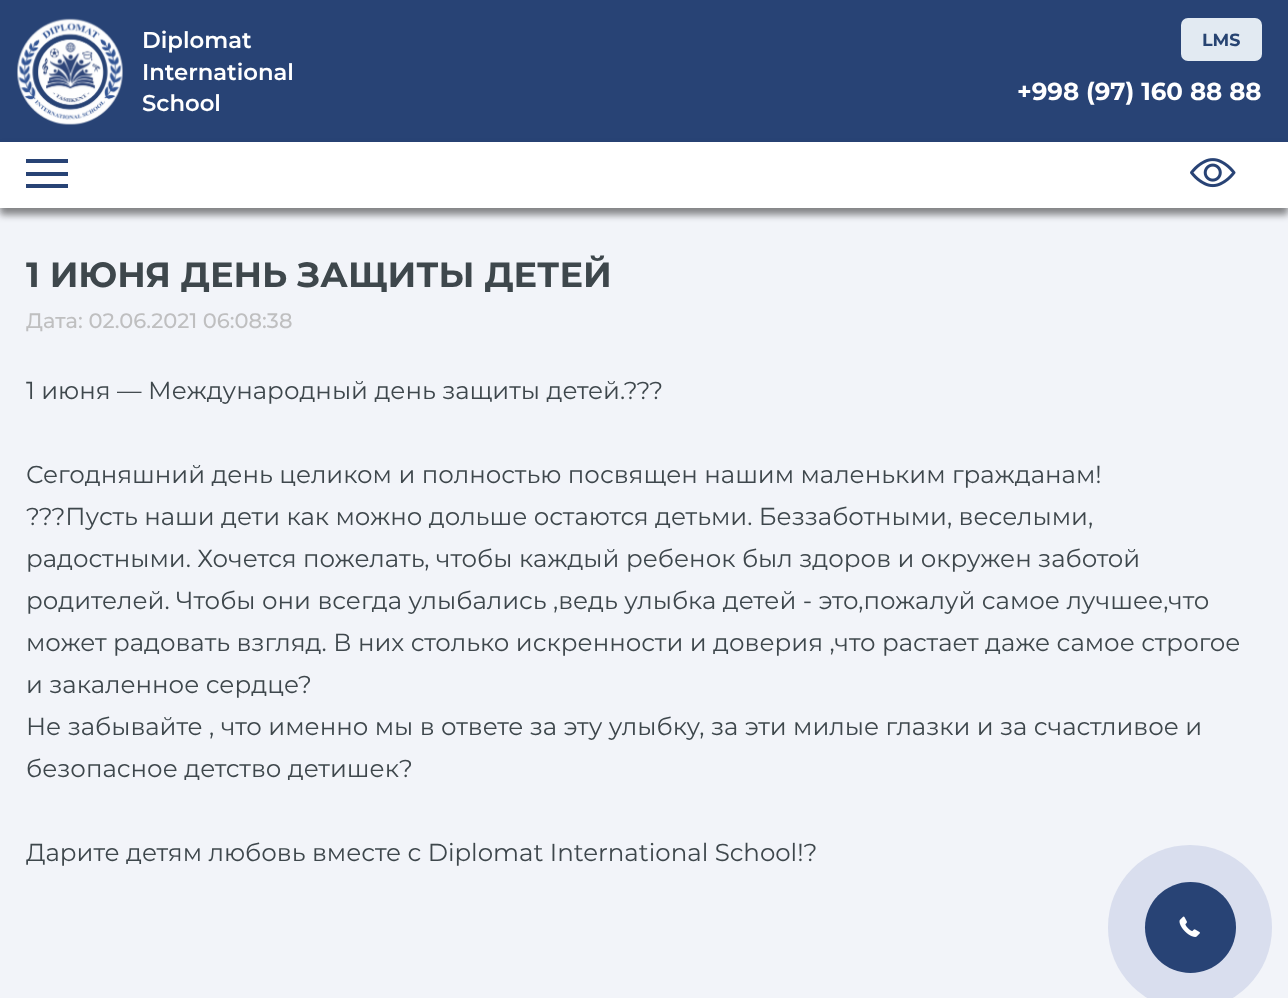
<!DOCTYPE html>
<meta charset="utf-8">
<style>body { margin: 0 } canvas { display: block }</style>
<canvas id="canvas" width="1288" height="998"></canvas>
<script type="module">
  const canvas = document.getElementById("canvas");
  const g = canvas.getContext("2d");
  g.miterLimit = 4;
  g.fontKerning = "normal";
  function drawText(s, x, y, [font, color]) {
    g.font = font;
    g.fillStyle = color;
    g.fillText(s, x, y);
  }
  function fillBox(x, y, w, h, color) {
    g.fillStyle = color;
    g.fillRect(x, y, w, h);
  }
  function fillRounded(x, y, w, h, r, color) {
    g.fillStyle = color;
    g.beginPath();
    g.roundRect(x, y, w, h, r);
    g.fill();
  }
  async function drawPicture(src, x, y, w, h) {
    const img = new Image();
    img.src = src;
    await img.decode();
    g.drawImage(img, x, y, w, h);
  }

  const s1 = ["600 22.75px Montserrat", "#FFFFFF"];
  const s2 = ["bold 17.5px Montserrat", "#274472"];
  const s3 = ["bold 24.5px Montserrat", "#FFFFFF"];
  const s4 = ["bold 35px Montserrat", "#3E474C"];
  const s5 = ["500 21px Montserrat", "#BFBFC0"];
  const s6 = ["24.5px Montserrat", "#3E474C"];

  fillBox(0, 0, 1288, 998, "#F2F4F9");
  g.fillStyle = "rgba(0, 0, 0, 0.4)";
  g.filter = "blur(3.5px)";
  g.beginPath();
  g.rect(0, 7, 1288, 208);
  g.fill();
  g.filter = "none";
  fillBox(0, 0, 1288, 142, "#284375");
  await drawPicture("pic1.png", 17, 18, 106, 107);
  drawText("Diplomat", 142, 48, s1);
  drawText("International", 142, 80, s1);
  drawText("School", 142, 111, s1);
  fillRounded(1181, 18, 81, 43, 7, "#E2EAF2");
  drawText("LMS", 1202, 46, s2);
  drawText("+998 (97) 160 88 88", 1017, 100, s3);
  g.fillStyle = "rgba(0, 0, 0, 0.1)";
  g.filter = "blur(3.5px)";
  g.beginPath();
  g.rect(0, 145, 1288, 67);
  g.fill();
  g.filter = "none";
  fillBox(0, 142, 1288, 66, "#FFFFFF");
  fillBox(26, 159, 42, 4, "#284375");
  fillBox(26, 172, 42, 4, "#284375");
  fillBox(26, 184, 42, 4, "#284375");
  await drawPicture("pic2.png", 1190, 158, 46, 30);
  drawText("1 ИЮНЯ ДЕНЬ ЗАЩИТЫ ДЕТЕЙ", 26, 287, s4);
  drawText("Дата: 02.06.2021 06:08:38", 26, 328, s5);
  drawText("1 июня — Международный день защиты детей.?‍?‍?", 26, 399, s6);
  drawText("Сегодняшний день целиком и полностью посвящен нашим маленьким гражданам!", 26, 483, s6);
  drawText("?‍?‍?Пусть наши дети как можно дольше остаются детьми. Беззаботными, веселыми,", 26, 525, s6);
  drawText("радостными. Хочется пожелать, чтобы каждый ребенок был здоров и окружен заботой", 26, 567, s6);
  drawText("родителей. Чтобы они всегда улыбались ,ведь улыбка детей - это,пожалуй самое лучшее,что", 26, 609, s6);
  drawText("может радовать взгляд. В них столько искренности и доверия ,что растает даже самое строгое", 26, 651, s6);
  drawText("и закаленное сердце?", 26, 693, s6);
  drawText("Не забывайте , что именно мы в ответе за эту улыбку, за эти милые глазки и за счастливое и", 26, 735, s6);
  drawText("безопасное детство детишек?", 26, 777, s6);
  drawText("Дарите детям любовь вместе с Diplomat International School!?", 26, 861, s6);
  fillRounded(1108, 845, 164, 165, 82, "#D9DEEE");
  g.fillStyle = "#284375";
  g.beginPath();
  g.arc(1190.5, 927.5, 45.5, 0, Math.PI * 2);
  g.fill();
  await drawPicture("pic3.png", 1179, 916, 21, 21);
</script>
